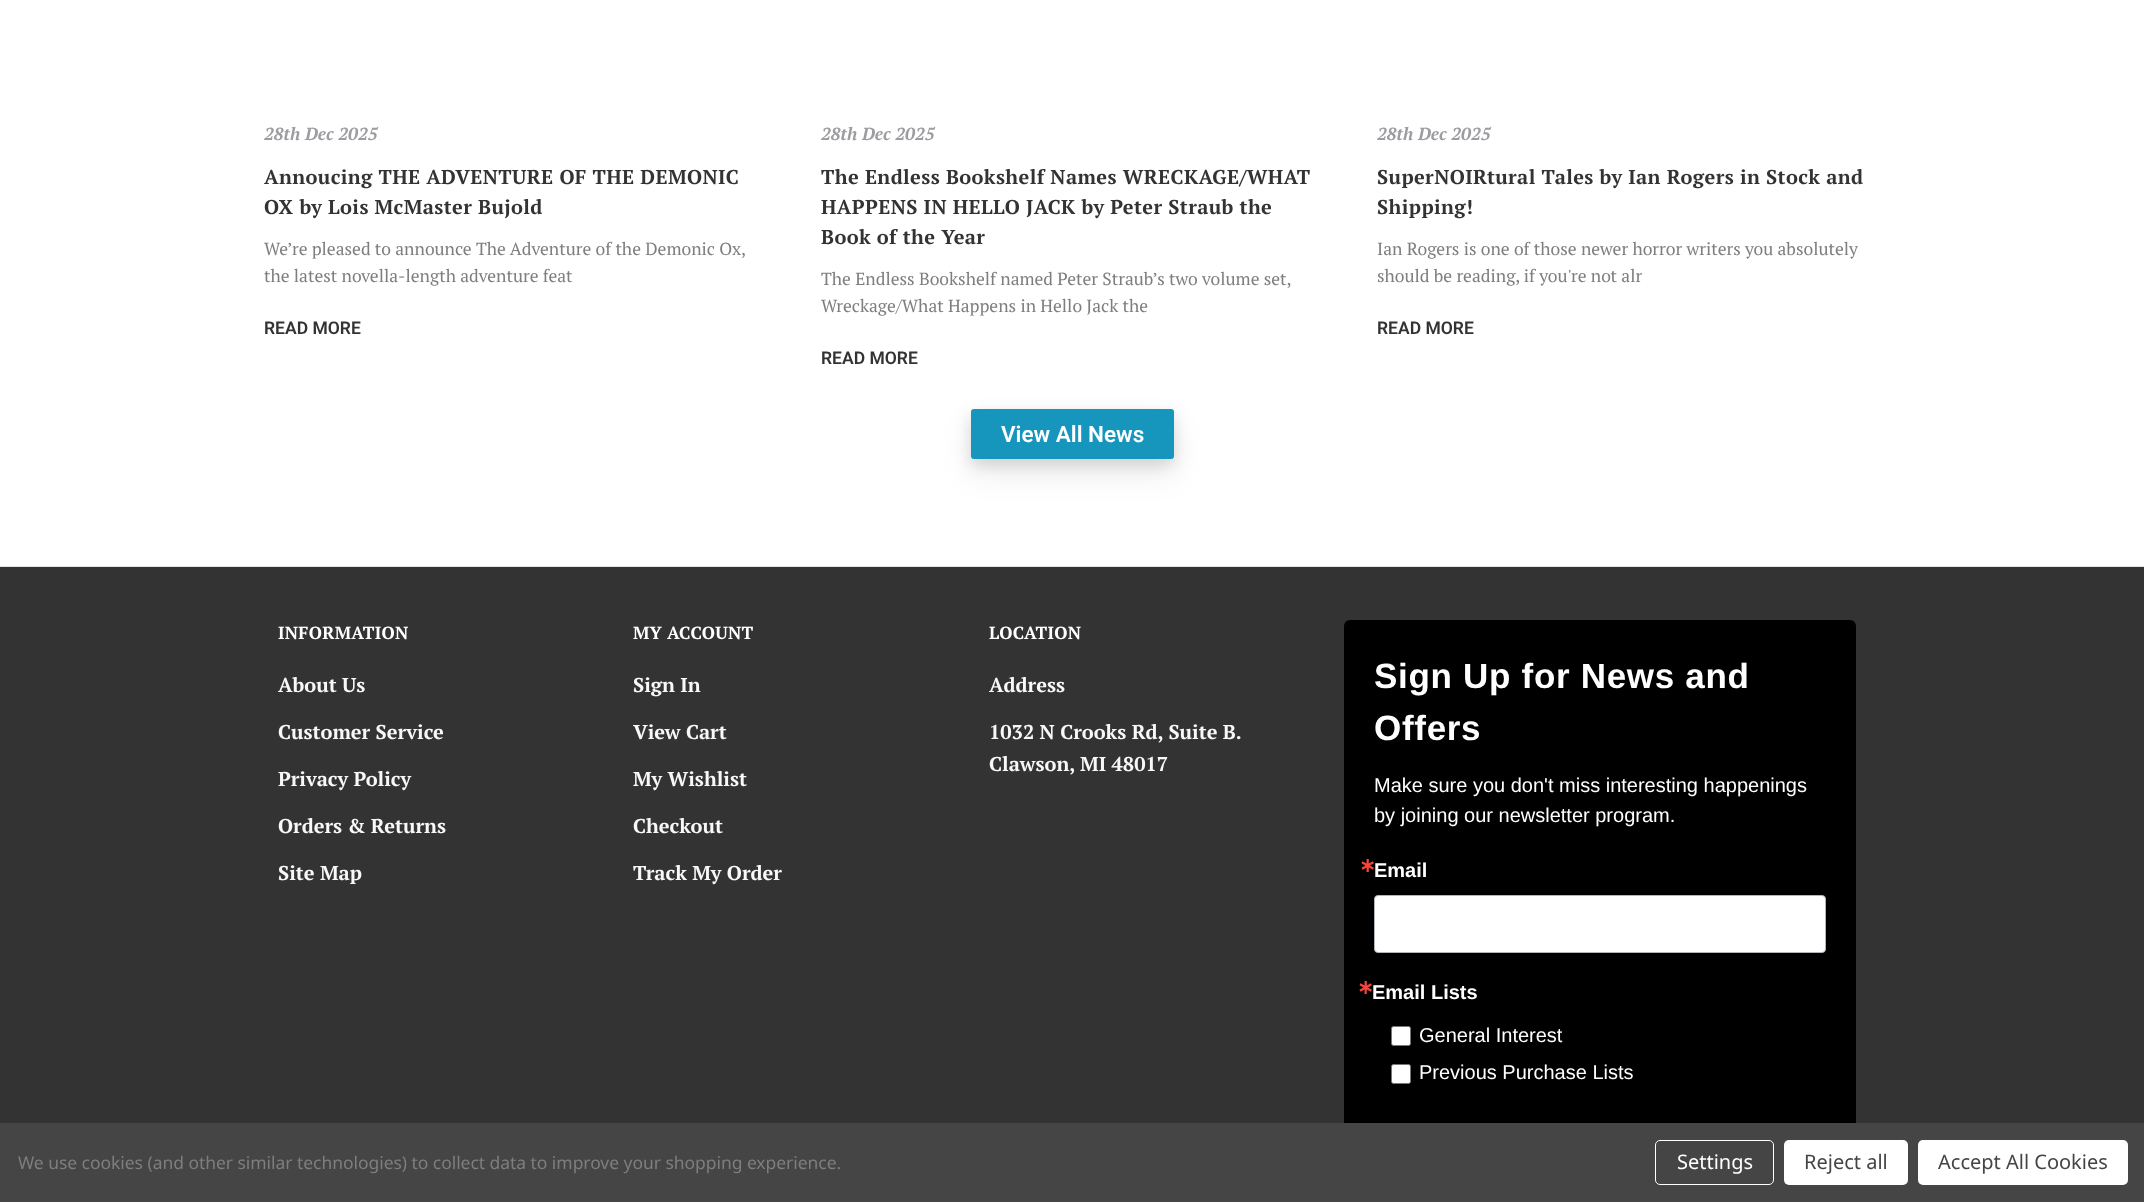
<!DOCTYPE html>
<meta charset="utf-8">
<style>body { margin: 0 } canvas { display: block }</style>
<canvas id="canvas" width="2144" height="1202"></canvas>
<script type="module">
  const canvas = document.getElementById("canvas");
  const g = canvas.getContext("2d");
  g.miterLimit = 4;
  g.fontKerning = "normal";
  function drawText(s, x, y, [font, color]) {
    g.font = font;
    g.fillStyle = color;
    g.fillText(s, x, y);
  }
  function fillBox(x, y, w, h, color) {
    g.fillStyle = color;
    g.fillRect(x, y, w, h);
  }
  function fillRounded(x, y, w, h, r, color) {
    g.fillStyle = color;
    g.beginPath();
    g.roundRect(x, y, w, h, r);
    g.fill();
  }

  const s1 = ["italic bold 17.5px PT Serif", "#9C9DA1"];
  const s2 = ["bold 20px PT Serif", "#333333"];
  const s3 = ["17.5px PT Serif", "#7C7E80"];
  const s4 = ["600 17.5px Roboto", "#333333"];
  const s5 = ["600 22.5px Roboto", "#FFFFFF"];
  const s6 = ["bold 17.5px PT Serif", "#FFFFFF"];
  const s7 = ["bold 20px PT Serif", "#F8F8F8"];
  const s8 = ["bold 35px Liberation Sans", "#FFFFFF"];
  const s9 = ["20px Liberation Sans", "#FFFFFF"];
  const s10 = ["bold 20px DejaVu Sans", "#F5463B"];
  const s11 = ["bold 20px Liberation Sans", "#FFFFFF"];
  const s12 = ["17.5px Noto Sans", "#7C7E80"];
  const s13 = ["20px Noto Sans", "#FFFFFF"];
  const s14 = ["20px Noto Sans", "#454545"];

  fillBox(0, 0, 2144, 1202, "#FFFFFF");
  drawText("28th Dec 2025", 264, 140, s1);
  g.letterSpacing = "0.4px";
  drawText("Annoucing THE ADVENTURE OF THE DEMONIC", 264, 184, s2);
  drawText("OX by Lois McMaster Bujold", 264, 214, s2);
  g.letterSpacing = "0px";
  drawText("We’re pleased to announce The Adventure of the Demonic Ox,", 264, 255, s3);
  drawText("the latest novella-length adventure feat", 264, 282, s3);
  drawText("READ MORE", 264, 334, s4);
  drawText("28th Dec 2025", 821, 140, s1);
  g.letterSpacing = "0.4px";
  drawText("The Endless Bookshelf Names WRECKAGE/WHAT", 821, 184, s2);
  drawText("HAPPENS IN HELLO JACK by Peter Straub the", 821, 214, s2);
  drawText("Book of the Year", 821, 244, s2);
  g.letterSpacing = "0px";
  drawText("The Endless Bookshelf named Peter Straub’s two volume set,", 821, 285, s3);
  drawText("Wreckage/What Happens in Hello Jack the", 821, 312, s3);
  drawText("READ MORE", 821, 364, s4);
  drawText("28th Dec 2025", 1377, 140, s1);
  g.letterSpacing = "0.4px";
  drawText("SuperNOIRtural Tales by Ian Rogers in Stock and", 1377, 184, s2);
  drawText("Shipping!", 1377, 214, s2);
  g.letterSpacing = "0px";
  drawText("Ian Rogers is one of those newer horror writers you absolutely", 1377, 255, s3);
  drawText("should be reading, if you're not alr", 1377, 282, s3);
  drawText("READ MORE", 1377, 334, s4);
  g.fillStyle = "rgba(0, 0, 0, 0.12)";
  g.filter = "blur(7.5px)";
  g.beginPath();
  g.roundRect(971, 415, 203, 50, 2.5);
  g.fill();
  g.filter = "none";
  g.fillStyle = "rgba(0, 0, 0, 0.08)";
  g.filter = "blur(15px)";
  g.beginPath();
  g.roundRect(971, 424, 203, 50, 2.5);
  g.fill();
  g.filter = "none";
  g.fillStyle = "#1796BD";
  g.beginPath();
  g.roundRect(971.5, 409.5, 202, 49, 2);
  g.fill();
  g.strokeStyle = "#1796BD";
  g.stroke();
  drawText("View All News", 1001, 442, s5);
  fillBox(0, 567, 2144, 556, "#333333");
  fillBox(0, 566, 2144, 1, "#E5E5E5");
  g.letterSpacing = "0.3px";
  drawText("INFORMATION", 278, 639, s6);
  g.letterSpacing = "0px";
  drawText("About Us", 278, 692, s7);
  drawText("Customer Service", 278, 739, s7);
  drawText("Privacy Policy", 278, 786, s7);
  drawText("Orders & Returns", 278, 833, s7);
  drawText("Site Map", 278, 880, s7);
  g.letterSpacing = "0.3px";
  drawText("MY ACCOUNT", 633, 639, s6);
  g.letterSpacing = "0px";
  drawText("Sign In", 633, 692, s7);
  drawText("View Cart", 633, 739, s7);
  drawText("My Wishlist", 633, 786, s7);
  drawText("Checkout", 633, 833, s7);
  drawText("Track My Order", 633, 880, s7);
  g.letterSpacing = "0.3px";
  drawText("LOCATION", 989, 639, s6);
  g.letterSpacing = "0px";
  drawText("Address", 989, 692, s7);
  drawText("1032 N Crooks Rd, Suite B.", 989, 739, s7);
  drawText("Clawson, MI 48017", 989, 771, s7);
  fillRounded(1344, 620, 512, 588, 6, "#000000");
  g.letterSpacing = "0.7px";
  drawText("Sign Up for News and", 1374, 688, s8);
  drawText("Offers", 1374, 740, s8);
  g.letterSpacing = "0px";
  drawText("Make sure you don't miss interesting happenings", 1374, 792, s9);
  drawText("by joining our newsletter program.", 1374, 822, s9);
  drawText("∗", 1359, 872, s10);
  drawText("Email", 1374, 877, s11);
  g.beginPath();
  g.roundRect(1374.5, 895.5, 451, 57, 3.5);
  g.fill();
  g.strokeStyle = "#B0B6BB";
  g.stroke();
  drawText("∗", 1357, 994, s10);
  drawText("Email Lists", 1372, 999, s11);
  g.beginPath();
  g.roundRect(1391.5, 1026.5, 19, 19, 2);
  g.fill();
  g.strokeStyle = "#767676";
  g.stroke();
  drawText("General Interest", 1419, 1042, s9);
  g.beginPath();
  g.roundRect(1391.5, 1064.5, 19, 19, 2);
  g.fill();
  g.stroke();
  drawText("Previous Purchase Lists", 1419, 1079, s9);
  fillBox(0, 1123, 2144, 79, "#454545");
  g.letterSpacing = "-0.05px";
  drawText("We use cookies (and other similar technologies) to collect data to improve your shopping experience.", 18, 1169, s12);
  g.beginPath();
  g.roundRect(1655.5, 1140.5, 118, 44, 4.5);
  g.strokeStyle = "#FFFFFF";
  g.stroke();
  g.letterSpacing = "0px";
  drawText("Settings", 1677, 1169, s13);
  fillRounded(1784, 1140, 124, 45, 5, "#FFFFFF");
  drawText("Reject all", 1804, 1169, s14);
  fillRounded(1918, 1140, 210, 45, 5, "#FFFFFF");
  drawText("Accept All Cookies", 1938, 1169, s14);
</script>
